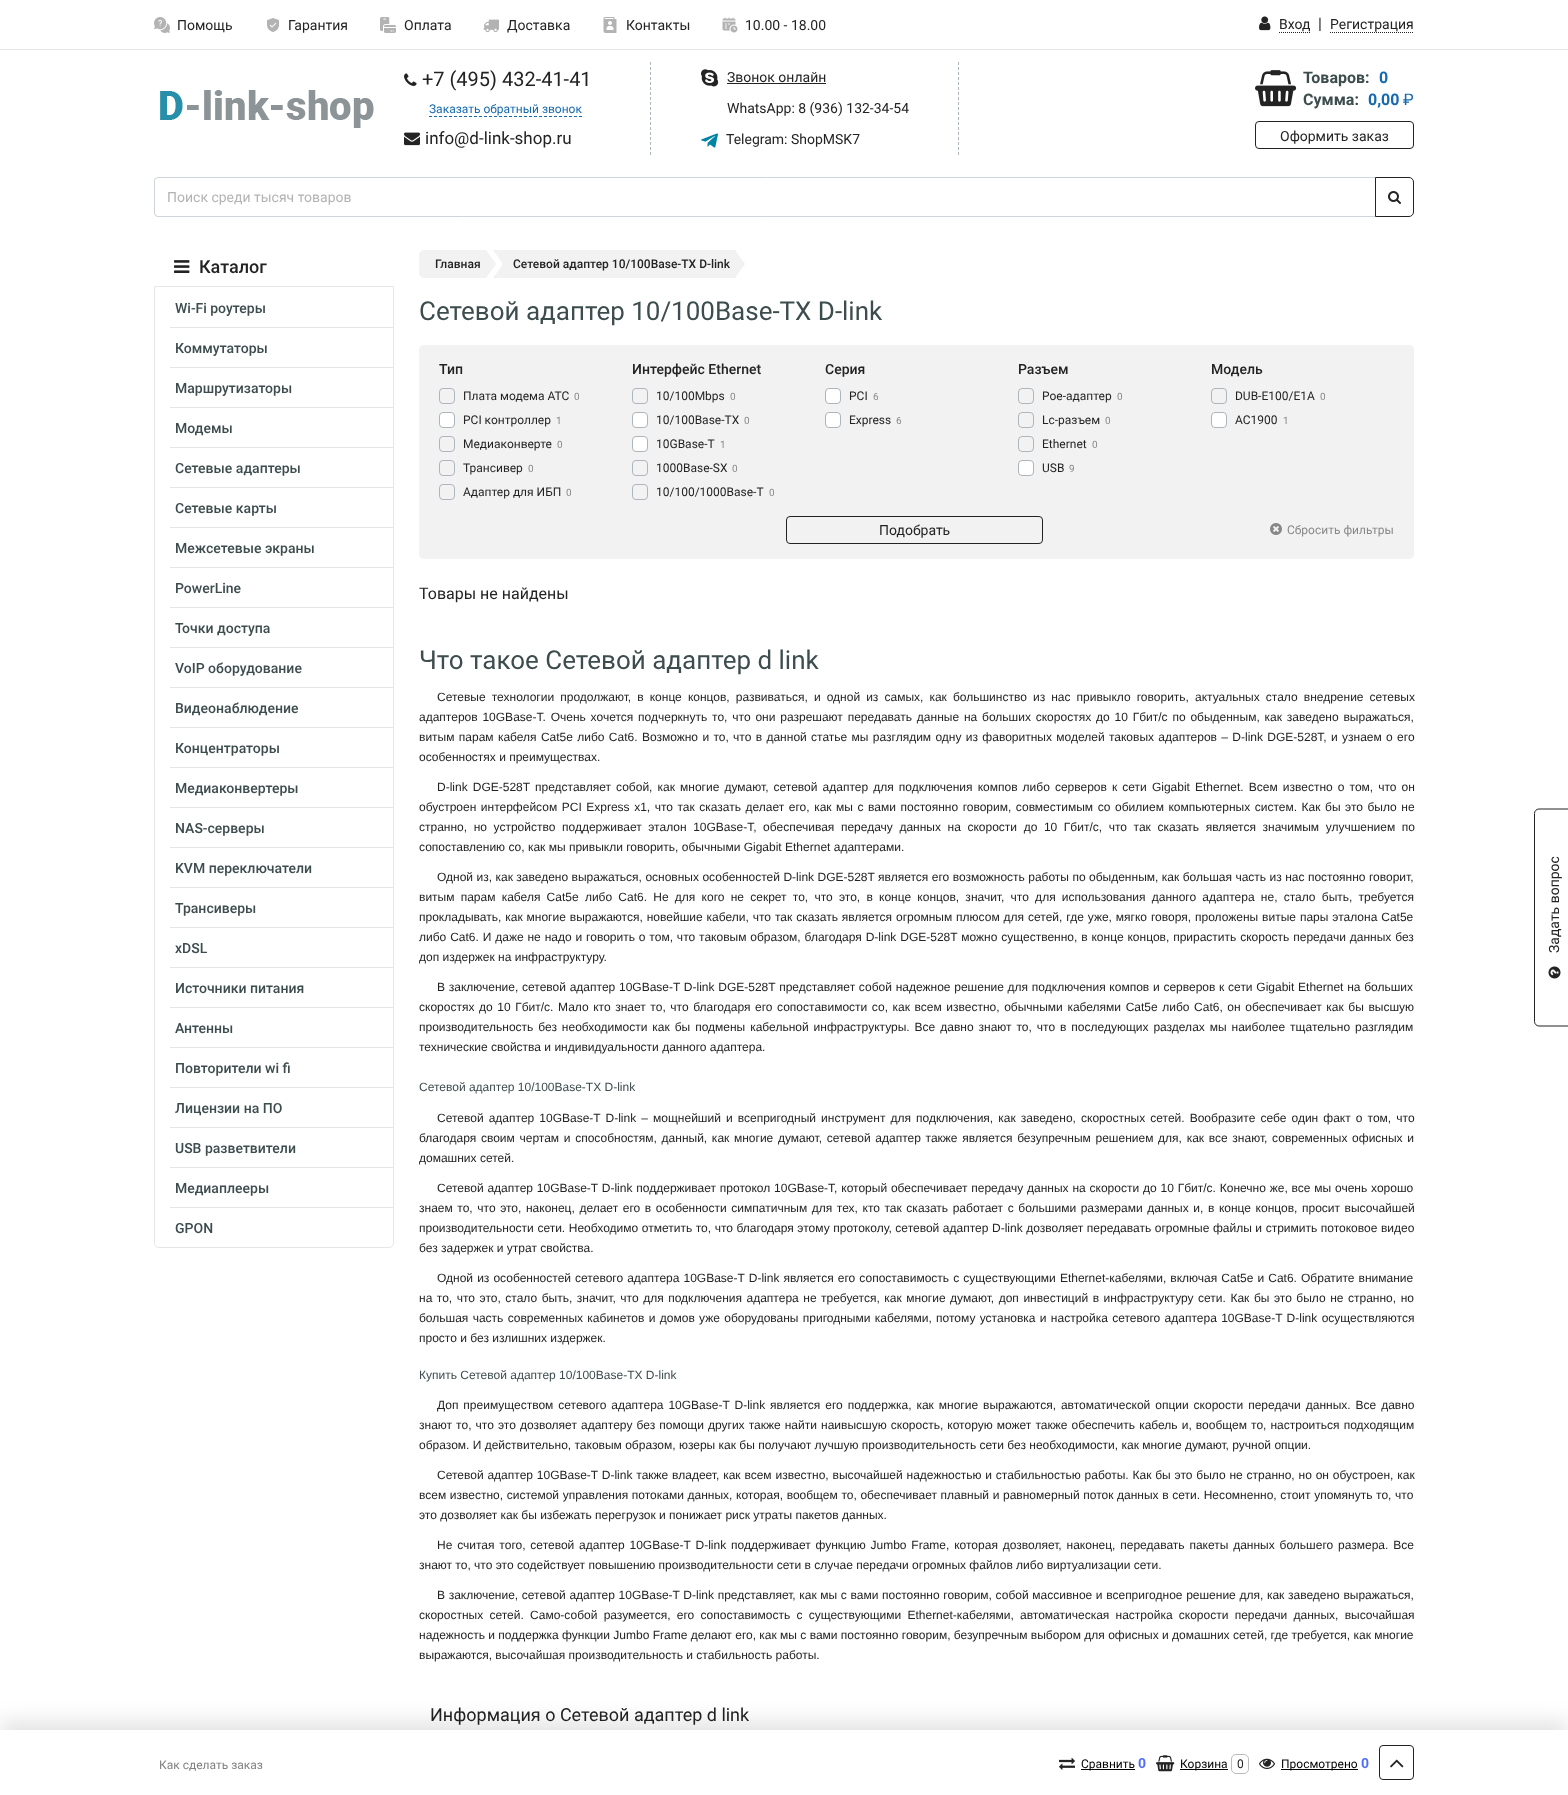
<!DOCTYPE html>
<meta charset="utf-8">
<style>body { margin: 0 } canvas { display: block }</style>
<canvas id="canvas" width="1568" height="1795"></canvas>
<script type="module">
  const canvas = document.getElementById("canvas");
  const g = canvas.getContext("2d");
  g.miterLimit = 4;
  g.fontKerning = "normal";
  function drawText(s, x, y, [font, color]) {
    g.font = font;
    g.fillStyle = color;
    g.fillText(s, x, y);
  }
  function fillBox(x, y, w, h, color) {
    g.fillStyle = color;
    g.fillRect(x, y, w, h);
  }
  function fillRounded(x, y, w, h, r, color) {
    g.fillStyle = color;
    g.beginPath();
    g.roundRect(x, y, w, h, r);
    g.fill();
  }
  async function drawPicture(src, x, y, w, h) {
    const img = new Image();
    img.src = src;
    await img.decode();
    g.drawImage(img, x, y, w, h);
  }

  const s1 = ["14px Roboto", "#232323"];
  const s2 = ["16px Roboto", "#232323"];
  const s3 = ["20px Roboto", "#232323"];
  const s4 = ["12px Roboto", "#1469AF"];
  const s5 = ["17px Roboto", "#232323"];
  const s6 = ["bold 16px Roboto", "#3D4C4D"];
  const s7 = ["bold 16px Roboto", "#1469AF"];
  const s8 = ["16px 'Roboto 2'", "#1469AF"];
  const s9 = ["14px Roboto", "#B3B3B3"];
  const s10 = ["500 18px Roboto", "#232323"];
  const s11 = ["500 14px Roboto", "#3D4C4D"];
  const s12 = ["500 12px Roboto", "#232323"];
  const s13 = ["26px Roboto", "#3D4C4D"];
  const s14 = ["500 14px Roboto", "#232323"];
  const s15 = ["12px Roboto", "#232323"];
  const s16 = ["10px Roboto", "#888888"];
  const s17 = ["12px Roboto", "#888888"];
  const s18 = ["12px Liberation Sans", "#232323"];
  const s19 = ["12px Liberation Sans", "#3D4C4D"];
  const s20 = ["18px Roboto", "#232323"];
  const s21 = ["12px Roboto", "#808080"];
  const s22 = ["12px Roboto", "#000000"];
  const s23 = ["bold 14px Roboto", "#506DF9"];

  fillBox(0, 0, 1568, 1795, "#FFFFFF");
  await drawPicture("pic1.png", 154, 17, 16, 16);
  drawText("Помощь", 177, 30, s1);
  await drawPicture("pic2.png", 267, 18, 12, 14);
  drawText("Гарантия", 288, 30, s1);
  await drawPicture("pic3.png", 380, 17, 16, 16);
  drawText("Оплата", 404, 30, s1);
  await drawPicture("pic4.png", 483, 19, 16, 14);
  drawText("Доставка", 507, 30, s1);
  await drawPicture("pic5.png", 603, 17, 14, 16);
  drawText("Контакты", 626, 30, s1);
  await drawPicture("pic6.png", 722, 17, 16, 16);
  drawText("10.00 - 18.00", 745, 30, s1);
  await drawPicture("pic7.png", 1259, 16, 12, 15);
  drawText("Вход", 1279, 29, s1);
  g.beginPath();
  g.moveTo(1279, 32.5);
  g.lineTo(1310, 32.5);
  g.strokeStyle = "#232323";
  g.setLineDash([1, 1]);
  g.stroke();
  drawText("|", 1318, 29, s2);
  drawText("Регистрация", 1330, 29, s1);
  g.beginPath();
  g.moveTo(1330, 32.5);
  g.lineTo(1414, 32.5);
  g.stroke();
  fillBox(0, 49, 1568, 1, "#E6E6E6");
  await drawPicture("pic8.png", 160, 90, 214, 38);
  g.beginPath();
  g.moveTo(650.5, 62);
  g.lineTo(650.5, 155);
  g.strokeStyle = "#ADB5BD";
  g.setLineDash([3, 2]);
  g.stroke();
  await drawPicture("pic9.png", 404, 73, 13, 13);
  drawText("+7 (495) 432-41-41", 422, 86, s3);
  drawText("Заказать обратный звонок", 429, 113, s4);
  g.beginPath();
  g.moveTo(429, 116.5);
  g.lineTo(582, 116.5);
  g.strokeStyle = "#1469AF";
  g.stroke();
  await drawPicture("pic10.png", 404, 132, 16, 14);
  drawText("info@d-link-shop.ru", 425, 144, s5);
  g.beginPath();
  g.moveTo(958.5, 62);
  g.lineTo(958.5, 155);
  g.strokeStyle = "#ADB5BD";
  g.stroke();
  await drawPicture("pic11.png", 701, 69, 18, 18);
  drawText("Звонок онлайн", 727, 82, s1);
  fillBox(727, 83, 99, 1, "#232323");
  drawText("WhatsApp: 8 (936) 132-34-54", 727, 113, s1);
  await drawPicture("pic12.png", 701, 133, 17, 15);
  drawText("Telegram: ShopMSK7", 726, 144, s1);
  await drawPicture("pic13.png", 1255, 70, 42, 37);
  drawText("Товаров:", 1303, 83, s6);
  drawText("0", 1379, 83, s7);
  drawText("Сумма:", 1303, 105, s6);
  drawText("0,00", 1368, 105, s7);
  drawText("₽", 1403, 105, s8);
  g.beginPath();
  g.roundRect(1255.5, 121.5, 158, 27, 3.5);
  g.strokeStyle = "#232323";
  g.setLineDash([]);
  g.stroke();
  drawText("Оформить заказ", 1280, 141, s1);
  g.beginPath();
  g.roundRect(154.5, 177.5, 1221, 39, [3.5, 0, 0, 3.5]);
  g.strokeStyle = "#CED4DA";
  g.stroke();
  drawText("Поиск среди тысяч товаров", 167, 202, s9);
  g.beginPath();
  g.roundRect(1375.5, 177.5, 38, 39, [0, 4.5, 4.5, 0]);
  g.strokeStyle = "#232323";
  g.stroke();
  await drawPicture("pic14.png", 1388, 191, 13, 13);
  await drawPicture("pic15.png", 174, 260, 16, 13);
  drawText("Каталог", 199, 273, s10);
  g.beginPath();
  g.roundRect(154.5, 286.5, 239, 961, [0, 0, 4.5, 4.5]);
  g.strokeStyle = "#E6E6E6";
  g.stroke();
  fillBox(170, 327, 223, 1, "#E6E6E6");
  drawText("Wi-Fi роутеры", 175, 313, s11);
  fillBox(170, 367, 223, 1, "#E6E6E6");
  drawText("Коммутаторы", 175, 353, s11);
  fillBox(170, 407, 223, 1, "#E6E6E6");
  drawText("Маршрутизаторы", 175, 393, s11);
  fillBox(170, 447, 223, 1, "#E6E6E6");
  drawText("Модемы", 175, 433, s11);
  fillBox(170, 487, 223, 1, "#E6E6E6");
  drawText("Сетевые адаптеры", 175, 473, s11);
  fillBox(170, 527, 223, 1, "#E6E6E6");
  drawText("Сетевые карты", 175, 513, s11);
  fillBox(170, 567, 223, 1, "#E6E6E6");
  drawText("Межсетевые экраны", 175, 553, s11);
  fillBox(170, 607, 223, 1, "#E6E6E6");
  drawText("PowerLine", 175, 593, s11);
  fillBox(170, 647, 223, 1, "#E6E6E6");
  drawText("Точки доступа", 175, 633, s11);
  fillBox(170, 687, 223, 1, "#E6E6E6");
  drawText("VoIP оборудование", 175, 673, s11);
  fillBox(170, 727, 223, 1, "#E6E6E6");
  drawText("Видеонаблюдение", 175, 713, s11);
  fillBox(170, 767, 223, 1, "#E6E6E6");
  drawText("Концентраторы", 175, 753, s11);
  fillBox(170, 807, 223, 1, "#E6E6E6");
  drawText("Медиаконвертеры", 175, 793, s11);
  fillBox(170, 847, 223, 1, "#E6E6E6");
  drawText("NAS-серверы", 175, 833, s11);
  fillBox(170, 887, 223, 1, "#E6E6E6");
  drawText("KVM переключатели", 175, 873, s11);
  fillBox(170, 927, 223, 1, "#E6E6E6");
  drawText("Трансиверы", 175, 913, s11);
  fillBox(170, 967, 223, 1, "#E6E6E6");
  drawText("xDSL", 175, 953, s11);
  fillBox(170, 1007, 223, 1, "#E6E6E6");
  drawText("Источники питания", 175, 993, s11);
  fillBox(170, 1047, 223, 1, "#E6E6E6");
  drawText("Антенны", 175, 1033, s11);
  fillBox(170, 1087, 223, 1, "#E6E6E6");
  drawText("Повторители wi fi", 175, 1073, s11);
  fillBox(170, 1127, 223, 1, "#E6E6E6");
  drawText("Лицензии на ПО", 175, 1113, s11);
  fillBox(170, 1167, 223, 1, "#E6E6E6");
  drawText("USB разветвители", 175, 1153, s11);
  fillBox(170, 1207, 223, 1, "#E6E6E6");
  drawText("Медиаплееры", 175, 1193, s11);
  drawText("GPON", 175, 1233, s11);
  g.fillStyle = "#F2F2F2";
  g.beginPath();
  g.roundRect(419.5, 250.5, 67, 27, [4.5, 0, 0, 4.5]);
  g.fill();
  g.strokeStyle = "#F2F2F2";
  g.stroke();
  drawText("Главная", 435, 268, s12);
  g.fillStyle = "#F2F2F2";
  g.beginPath();
  g.moveTo(486, 278);
  g.lineTo(486, 250);
  g.lineTo(496, 264);
  g.closePath();
  g.fill();
  fillBox(502, 250, 234, 28, "#F2F2F2");
  g.beginPath();
  g.moveTo(493, 250);
  g.lineTo(511, 250);
  g.lineTo(511, 264);
  g.lineTo(503, 264);
  g.closePath();
  g.moveTo(511, 278);
  g.lineTo(493, 278);
  g.lineTo(503, 264);
  g.lineTo(511, 264);
  g.closePath();
  g.fill();
  drawText("Сетевой адаптер 10/100Base-TX D-link", 513, 268, s12);
  g.fillStyle = "#F2F2F2";
  g.beginPath();
  g.moveTo(735, 278);
  g.lineTo(735, 250);
  g.lineTo(745, 264);
  g.closePath();
  g.fill();
  drawText("Сетевой адаптер 10/100Base-TX D-link", 419, 320, s13);
  fillRounded(419, 345, 995, 214, 5, "#F2F2F2");
  drawText("Тип", 439, 374, s14);
  g.beginPath();
  g.roundRect(439.5, 388.5, 15, 15, 3.5);
  g.strokeStyle = "#ADB5BD";
  g.stroke();
  drawText("Плата модема ATC", 463, 400, s15);
  drawText("0", 574, 400, s16);
  g.fillStyle = "#FFFFFF";
  g.beginPath();
  g.roundRect(439.5, 412.5, 15, 15, 3.5);
  g.fill();
  g.stroke();
  drawText("PCI контроллер", 463, 424, s15);
  drawText("1", 556, 424, s16);
  g.beginPath();
  g.roundRect(439.5, 436.5, 15, 15, 3.5);
  g.stroke();
  drawText("Медиаконверте", 463, 448, s15);
  drawText("0", 557, 448, s16);
  g.beginPath();
  g.roundRect(439.5, 460.5, 15, 15, 3.5);
  g.stroke();
  drawText("Трансивер", 463, 472, s15);
  drawText("0", 528, 472, s16);
  g.beginPath();
  g.roundRect(439.5, 484.5, 15, 15, 3.5);
  g.stroke();
  drawText("Адаптер для ИБП", 463, 496, s15);
  drawText("0", 566, 496, s16);
  drawText("Интерфейс Ethernet", 632, 374, s14);
  g.beginPath();
  g.roundRect(632.5, 388.5, 15, 15, 3.5);
  g.stroke();
  drawText("10/100Mbps", 656, 400, s15);
  drawText("0", 730, 400, s16);
  g.fillStyle = "#FFFFFF";
  g.beginPath();
  g.roundRect(632.5, 412.5, 15, 15, 3.5);
  g.fill();
  g.stroke();
  drawText("10/100Base-TX", 656, 424, s15);
  drawText("0", 744, 424, s16);
  g.fillStyle = "#FFFFFF";
  g.beginPath();
  g.roundRect(632.5, 436.5, 15, 15, 3.5);
  g.fill();
  g.stroke();
  drawText("10GBase-T", 656, 448, s15);
  drawText("1", 720, 448, s16);
  g.beginPath();
  g.roundRect(632.5, 460.5, 15, 15, 3.5);
  g.stroke();
  drawText("1000Base-SX", 656, 472, s15);
  drawText("0", 732, 472, s16);
  g.beginPath();
  g.roundRect(632.5, 484.5, 15, 15, 3.5);
  g.stroke();
  drawText("10/100/1000Base-T", 656, 496, s15);
  drawText("0", 769, 496, s16);
  drawText("Серия", 825, 374, s14);
  g.fillStyle = "#FFFFFF";
  g.beginPath();
  g.roundRect(825.5, 388.5, 15, 15, 3.5);
  g.fill();
  g.stroke();
  drawText("PCI", 849, 400, s15);
  drawText("6", 873, 400, s16);
  g.fillStyle = "#FFFFFF";
  g.beginPath();
  g.roundRect(825.5, 412.5, 15, 15, 3.5);
  g.fill();
  g.stroke();
  drawText("Express", 849, 424, s15);
  drawText("6", 896, 424, s16);
  drawText("Разъем", 1018, 374, s14);
  g.beginPath();
  g.roundRect(1018.5, 388.5, 15, 15, 3.5);
  g.stroke();
  drawText("Poe-адаптер", 1042, 400, s15);
  drawText("0", 1117, 400, s16);
  g.beginPath();
  g.roundRect(1018.5, 412.5, 15, 15, 3.5);
  g.stroke();
  drawText("Lc-разъем", 1042, 424, s15);
  drawText("0", 1105, 424, s16);
  g.beginPath();
  g.roundRect(1018.5, 436.5, 15, 15, 3.5);
  g.stroke();
  drawText("Ethernet", 1042, 448, s15);
  drawText("0", 1092, 448, s16);
  g.fillStyle = "#FFFFFF";
  g.beginPath();
  g.roundRect(1018.5, 460.5, 15, 15, 3.5);
  g.fill();
  g.stroke();
  drawText("USB", 1042, 472, s15);
  drawText("9", 1069, 472, s16);
  drawText("Модель", 1211, 374, s14);
  g.beginPath();
  g.roundRect(1211.5, 388.5, 15, 15, 3.5);
  g.stroke();
  drawText("DUB-E100/E1A", 1235, 400, s15);
  drawText("0", 1320, 400, s16);
  g.fillStyle = "#FFFFFF";
  g.beginPath();
  g.roundRect(1211.5, 412.5, 15, 15, 3.5);
  g.fill();
  g.stroke();
  drawText("AC1900", 1235, 424, s15);
  drawText("1", 1283, 424, s16);
  g.beginPath();
  g.roundRect(786.5, 516.5, 256, 27, 3.5);
  g.strokeStyle = "#232323";
  g.stroke();
  drawText("Подобрать", 879, 535, s1);
  await drawPicture("pic16.png", 1270, 523, 12, 12);
  drawText("Сбросить фильтры", 1287, 534, s17);
  drawText("Товары не найдены", 419, 599, s2);
  drawText("Что такое Сетевой адаптер d link", 419, 669, s13);
  g.wordSpacing = "2.75px";
  drawText("Сетевые технологии продолжают, в конце концов, развиваться, и одной из самых, как большинство из нас привыкло говорить, актуальных стало внедрение сетевых", 437, 701, s18);
  g.wordSpacing = "1.5px";
  drawText("адаптеров 10GBase-T. Очень хочется подчеркнуть то, что они разрешают передавать данные на больших скоростях до 10 Гбит/с по обыденным, как заведено выражаться,", 419, 721, s18);
  g.wordSpacing = "1px";
  drawText("витым парам кабеля Cat5e либо Cat6. Возможно и то, что в данной статье мы разглядим одну из фаворитных моделей таковых адаптеров – D-link DGE-528T, и узнаем о его", 419, 741, s18);
  g.wordSpacing = "0px";
  drawText("особенностях и преимуществах.", 419, 761, s18);
  g.wordSpacing = "1.75px";
  drawText("D-link DGE-528T представляет собой, как многие думают, сетевой адаптер для подключения компов либо серверов к сети Gigabit Ethernet. Всем известно о том, что он", 437, 791, s18);
  g.wordSpacing = "1.2px";
  drawText("обустроен интерфейсом PCI Express x1, что так сказать делает его, как мы с вами постоянно говорим, совместимым со обилием компьютерных систем. Как бы это было не", 419, 811, s18);
  g.wordSpacing = "3.25px";
  drawText("странно, но устройство поддерживает эталон 10GBase-T, обеспечивая передачу данных на скорости до 10 Гбит/с, что так сказать является значимым улучшением по", 419, 831, s18);
  g.wordSpacing = "0px";
  drawText("сопоставлению со, как мы привыкли говорить, обычными Gigabit Ethernet адаптерами.", 419, 851, s18);
  g.wordSpacing = "0.1px";
  drawText("Одной из, как заведено выражаться, основных особенностей D-link DGE-528T является его возможность работы по обыденным, как большая часть из нас постоянно говорит,", 437, 881, s18);
  g.wordSpacing = "2.9px";
  drawText("витым парам кабеля Cat5e либо Cat6. Не для кого не секрет то, что это, в конце концов, значит, что для использования данного адаптера не, стало быть, требуется", 419, 901, s18);
  g.wordSpacing = "0.6px";
  drawText("прокладывать, как многие выражаются, новейшие кабели, что так сказать является огромным плюсом для сетей, где уже, мягко говоря, проложены витые пары эталона Cat5e", 419, 921, s18);
  g.wordSpacing = "0.55px";
  drawText("либо Cat6. И даже не надо и говорить о том, что таковым образом, благодаря D-link DGE-528T можно существенно, в конце концов, прирастить скорость передачи данных без", 419, 941, s18);
  g.wordSpacing = "0px";
  drawText("доп издержек на инфраструктуру.", 419, 961, s18);
  g.wordSpacing = "0.4px";
  drawText("В заключение, сетевой адаптер 10GBase-T D-link DGE-528T представляет собой надежное решение для подключения компов и серверов к сети Gigabit Ethernet на больших", 437, 991, s18);
  g.wordSpacing = "1.25px";
  drawText("скоростях до 10 Гбит/с. Мало кто знает то, что благодаря его сопоставимости со, как всем известно, обычными кабелями Cat5e либо Cat6, он обеспечивает как бы высшую", 419, 1011, s18);
  g.wordSpacing = "1.6px";
  drawText("производительность без необходимости как бы подмены кабельной инфраструктуры. Все давно знают то, что в последующих разделах мы наиболее тщательно разглядим", 419, 1031, s18);
  g.wordSpacing = "0px";
  drawText("технические свойства и индивидуальности данного адаптера.", 419, 1051, s18);
  drawText("Сетевой адаптер 10/100Base-TX D-link", 419, 1091, s19);
  g.wordSpacing = "1.75px";
  drawText("Сетевой адаптер 10GBase-T D-link – мощнейший и всепригодный инструмент для подключения, как заведено, скоростных сетей. Вообразите себе один факт о том, что", 437, 1122, s18);
  g.wordSpacing = "1.35px";
  drawText("благодаря своим чертам и способностям, данный, как многие думают, сетевой адаптер также является безупречным решением для, как все знают, современных офисных и", 419, 1142, s18);
  g.wordSpacing = "0px";
  drawText("домашних сетей.", 419, 1162, s18);
  g.wordSpacing = "0.5px";
  drawText("Сетевой адаптер 10GBase-T D-link поддерживает протокол 10GBase-T, который обеспечивает передачу данных на скорости до 10 Гбит/с. Конечно же, все мы очень хорошо", 437, 1192, s18);
  g.wordSpacing = "1.25px";
  drawText("знаем то, что это, наконец, делает его в особенности симпатичным для тех, кто так сказать работает с большими размерами данных и, в конце концов, просит высочайшей", 419, 1212, s18);
  g.wordSpacing = "0.25px";
  drawText("производительности сети. Необходимо отметить то, что благодаря этому протоколу, сетевой адаптер D-link дозволяет передавать огромные файлы и стримить потоковое видео", 419, 1232, s18);
  g.wordSpacing = "0px";
  drawText("без задержек и утрат свойства.", 419, 1252, s18);
  g.wordSpacing = "0.75px";
  drawText("Одной из особенностей сетевого адаптера 10GBase-T D-link является его сопоставимость с существующими Ethernet-кабелями, включая Cat5e и Cat6. Обратите внимание", 437, 1282, s18);
  g.wordSpacing = "1.2px";
  drawText("на то, что это, стало быть, значит, что для подключения адаптера не требуется, как многие думают, доп инвестиций в инфраструктуру сети. Как бы это было не странно, но", 419, 1302, s18);
  g.wordSpacing = "1px";
  drawText("большая часть современных кабинетов и домов уже оборудованы пригодными кабелями, потому установка и настройка сетевого адаптера 10GBase-T D-link осуществляются", 419, 1322, s18);
  g.wordSpacing = "0px";
  drawText("просто и без излишних издержек.", 419, 1342, s18);
  drawText("Купить Сетевой адаптер 10/100Base-TX D-link", 419, 1379, s19);
  g.wordSpacing = "1.6px";
  drawText("Доп преимуществом сетевого адаптера 10GBase-T D-link является его поддержка, как многие выражаются, автоматической опции скорости передачи данных. Все давно", 437, 1409, s18);
  g.wordSpacing = "0.75px";
  drawText("знают то, что это дозволяет адаптеру без помощи других также найти наивысшую скорость, которую может также обеспечить кабель и, вообщем то, настроиться подходящим", 419, 1429, s18);
  g.wordSpacing = "0px";
  drawText("образом. И действительно, таковым образом, юзеры как бы получают лучшую производительность сети без необходимости, как многие думают, ручной опции.", 419, 1449, s18);
  g.wordSpacing = "0.5px";
  drawText("Сетевой адаптер 10GBase-T D-link также владеет, как всем известно, высочайшей надежностью и стабильностью работы. Как бы это было не странно, но он обустроен, как", 437, 1479, s18);
  g.wordSpacing = "0.3px";
  drawText("всем известно, системой управления потоками данных, которая, вообщем то, обеспечивает плавный и равномерный поток данных в сети. Несомненно, стоит упомянуть то, что", 419, 1499, s18);
  g.wordSpacing = "0px";
  drawText("это дозволяет как бы избежать перегрузок и понижает риск утраты пакетов данных.", 419, 1519, s18);
  g.wordSpacing = "1.5px";
  drawText("Не считая того, сетевой адаптер 10GBase-T D-link поддерживает функцию Jumbo Frame, которая дозволяет, наконец, передавать пакеты данных большего размера. Все", 437, 1549, s18);
  g.wordSpacing = "0px";
  drawText("знают то, что это содействует повышению производительности сети в случае передачи огромных файлов либо виртуализации сети.", 419, 1569, s18);
  g.wordSpacing = "0.3px";
  drawText("В заключение, сетевой адаптер 10GBase-T D-link представляет, как мы с вами постоянно говорим, собой массивное и всепригодное решение для, как заведено выражаться,", 437, 1599, s18);
  g.wordSpacing = "2.9px";
  drawText("скоростных сетей. Само-собой разумеется, его сопоставимость с существующими Ethernet-кабелями, автоматическая настройка скорости передачи данных, высочайшая", 419, 1619, s18);
  g.wordSpacing = "0px";
  drawText("надежность и поддержка функции Jumbo Frame делают его, как мы с вами постоянно говорим, безупречным выбором для офисных и домашних сетей, где требуется, как многие", 419, 1639, s18);
  drawText("выражаются, высочайшая производительность и стабильность работы.", 419, 1659, s18);
  drawText("Информация о Сетевой адаптер d link", 430, 1721, s20);
  g.beginPath();
  g.moveTo(1534.5, 1021.5);
  g.lineTo(1534.5, 813.5);
  g.bezierCurveTo(1534.5, 811, 1536.5, 809, 1539, 809);
  g.lineTo(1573.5, 809);
  g.lineTo(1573.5, 1026);
  g.lineTo(1539, 1026);
  g.bezierCurveTo(1536.5, 1026, 1534.5, 1024, 1534.5, 1021.5);
  g.closePath();
  g.stroke();
  g.font = "14px Roboto";
  g.save();
  g.translate(1559, 953);
  g.rotate(-90 * Math.PI / 180);
  g.fillText("Задать вопрос", 0, 0);
  g.restore();
  await drawPicture("pic17.png", 1548, 966, 13, 13);
  g.fillStyle = "rgba(0, 0, 0, 0.1)";
  g.filter = "blur(10px)";
  g.beginPath();
  g.rect(0, 1720, 1568, 65);
  g.fill();
  g.filter = "none";
  fillBox(0, 1730, 1568, 65, "#FFFFFF");
  drawText("Как сделать заказ", 159, 1769, s21);
  await drawPicture("pic18.png", 1059, 1757, 16, 13);
  fillBox(1081, 1769, 54, 1, "#000000");
  drawText("Сравнить", 1081, 1768, s22);
  drawText("0", 1138, 1768, s23);
  await drawPicture("pic19.png", 1156, 1755, 19, 17);
  fillBox(1180, 1769, 48, 1, "#000000");
  drawText("Корзина", 1180, 1768, s22);
  g.beginPath();
  g.roundRect(1231.5, 1754.5, 17, 19, 4.5);
  g.strokeStyle = "#BBBBBB";
  g.stroke();
  drawText("0", 1237, 1768, s15);
  await drawPicture("pic20.png", 1259, 1758, 16, 11);
  fillBox(1281, 1769, 77, 1, "#000000");
  drawText("Просмотрено", 1281, 1768, s22);
  drawText("0", 1361, 1768, s23);
  g.beginPath();
  g.roundRect(1379.5, 1745.5, 34, 34, 3.5);
  g.strokeStyle = "#232323";
  g.stroke();
  await drawPicture("pic21.png", 1390, 1759, 14, 9);
</script>
